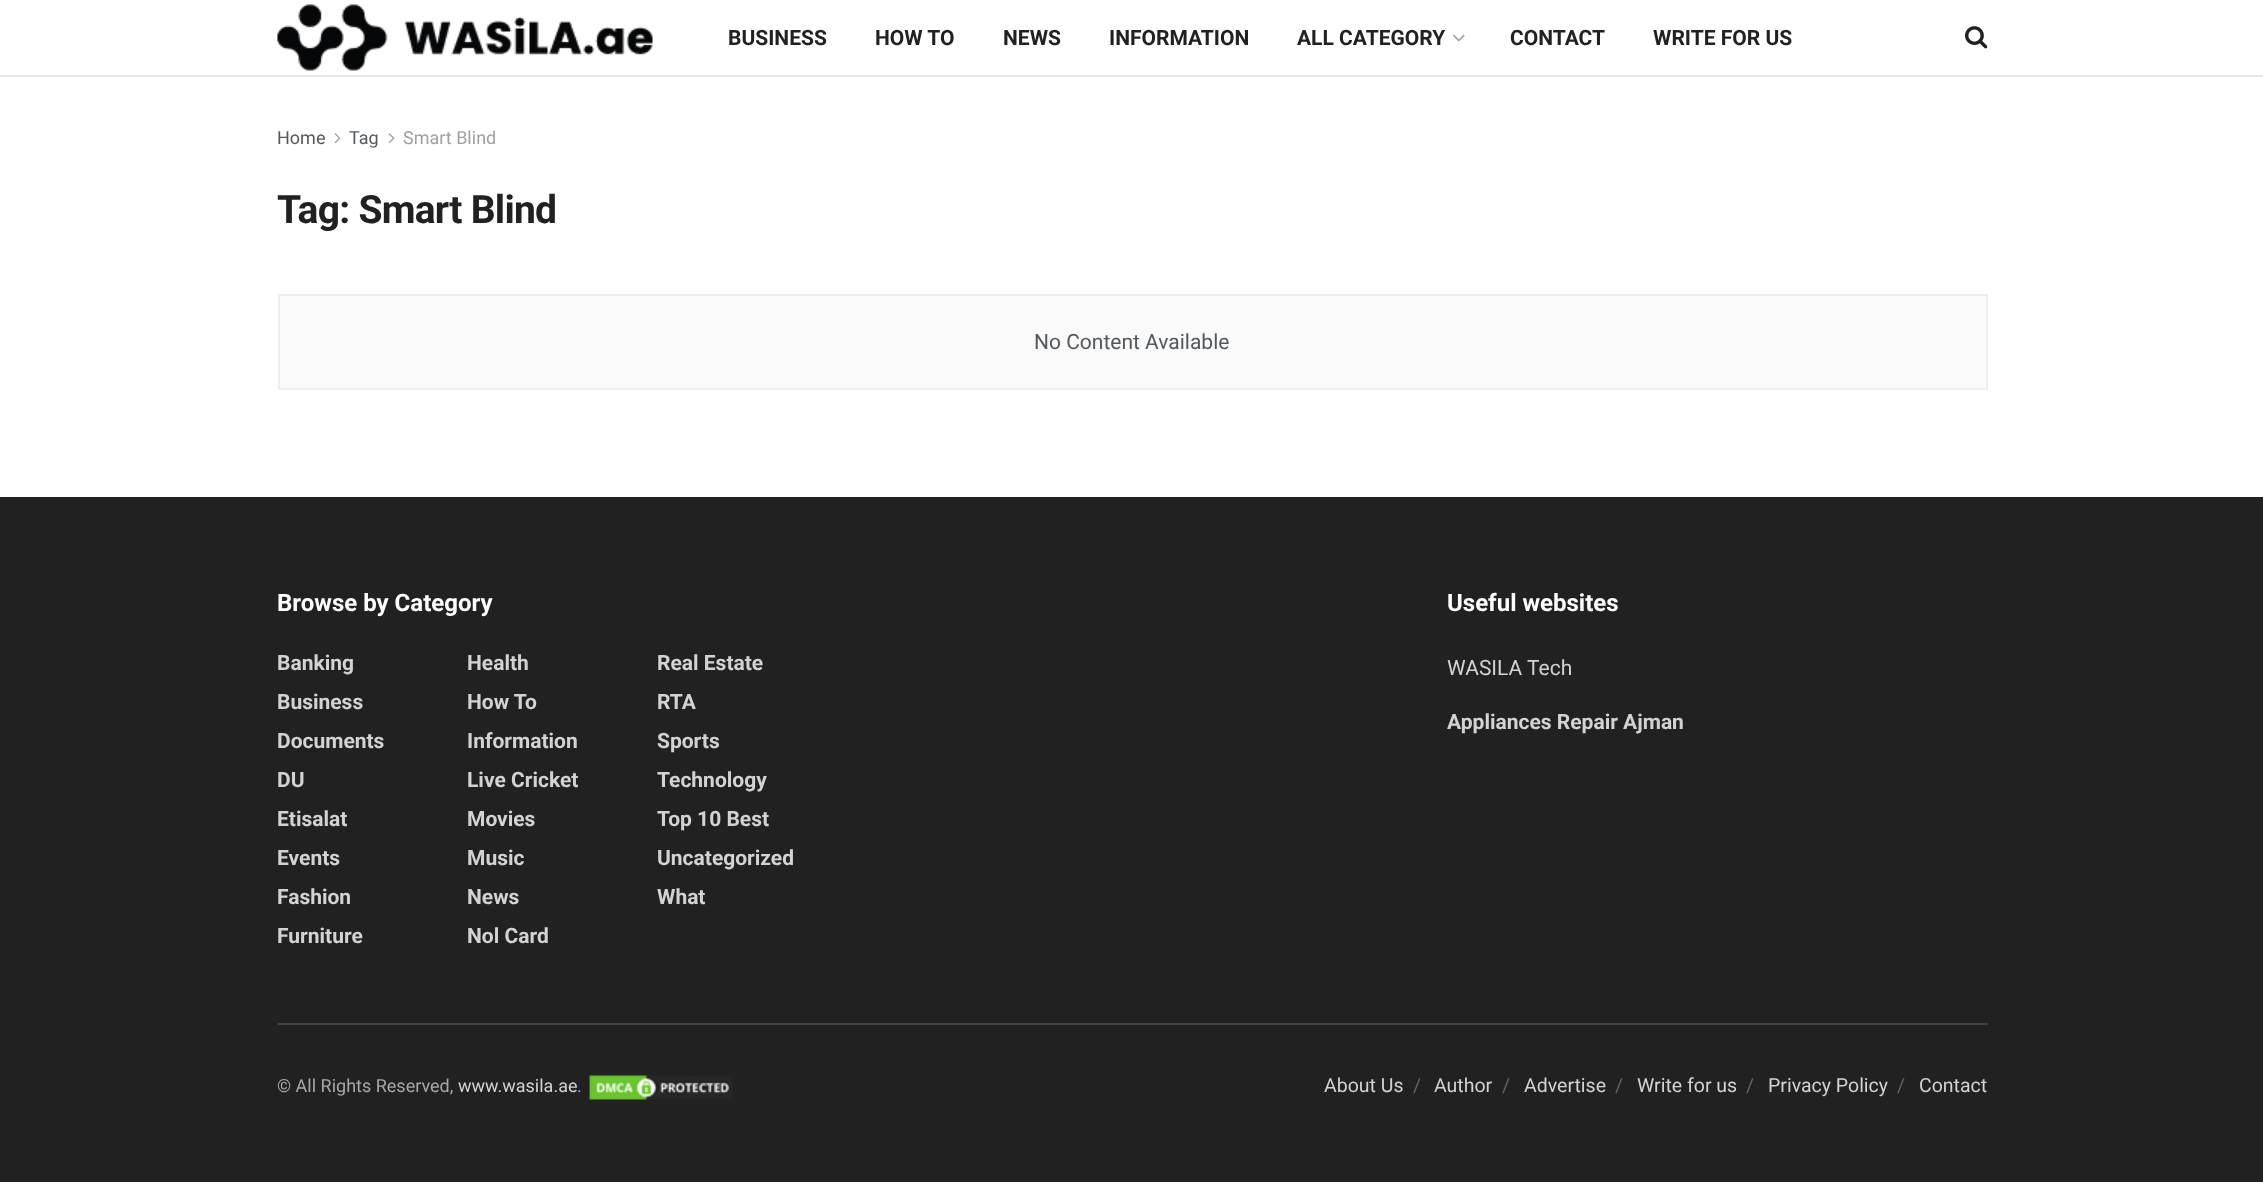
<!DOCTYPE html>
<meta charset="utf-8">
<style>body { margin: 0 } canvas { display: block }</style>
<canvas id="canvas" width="2263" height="1188"></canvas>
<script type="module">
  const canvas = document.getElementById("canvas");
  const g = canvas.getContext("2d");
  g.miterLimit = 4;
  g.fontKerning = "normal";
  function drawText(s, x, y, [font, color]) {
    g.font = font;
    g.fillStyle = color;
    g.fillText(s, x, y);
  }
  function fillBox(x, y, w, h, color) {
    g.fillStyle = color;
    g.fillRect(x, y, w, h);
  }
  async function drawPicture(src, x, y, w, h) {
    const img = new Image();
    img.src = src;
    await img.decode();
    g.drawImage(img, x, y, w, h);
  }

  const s1 = ["bold 21px Roboto", "#212121"];
  const s2 = ["18px Roboto", "#53585C"];
  const s3 = ["18px Roboto", "#A0A0A0"];
  const s4 = ["bold 39px Roboto", "#212121"];
  const s5 = ["21px Roboto", "#53585C"];
  const s6 = ["bold 24px Roboto", "#FFFFFF"];
  const s7 = ["bold 21px Roboto", "#D3D3D3"];
  const s8 = ["21px Roboto", "#D3D3D3"];
  const s9 = ["18px Roboto", "#A8A8AA"];
  const s10 = ["18px Roboto", "#D3D3D3"];
  const s11 = ["19.5px Roboto", "#D3D3D3"];
  const s12 = ["19.5px Roboto", "#646464"];

  fillBox(0, 0, 2263, 1188, "#FFFFFF");
  fillBox(0, 75, 2263, 2, "#E8E8E8");
  await drawPicture("pic1.png", 277, 4, 376, 67);
  drawText("BUSINESS", 728, 45, s1);
  drawText("HOW TO", 875, 45, s1);
  drawText("NEWS", 1003, 45, s1);
  drawText("INFORMATION", 1109, 45, s1);
  drawText("ALL CATEGORY", 1297, 45, s1);
  await drawPicture("pic2.png", 1453, 34, 12, 8);
  drawText("CONTACT", 1510, 45, s1);
  drawText("WRITE FOR US", 1653, 45, s1);
  await drawPicture("pic3.png", 1965, 26, 23, 23);
  drawText("Home", 277, 144, s2);
  await drawPicture("pic4.png", 334, 133, 7, 11);
  drawText("Tag", 349, 144, s2);
  await drawPicture("pic4.png", 388, 133, 7, 11);
  drawText("Smart Blind", 403, 144, s3);
  g.letterSpacing = "-0.75px";
  drawText("Tag: Smart Blind", 277, 223, s4);
  g.fillStyle = "#FAFAFA";
  g.beginPath();
  g.rect(279, 295, 1708, 94);
  g.fill();
  g.strokeStyle = "#EEEEEE";
  g.lineWidth = 2;
  g.stroke();
  g.letterSpacing = "0px";
  drawText("No Content Available", 1034, 349, s5);
  fillBox(0, 497, 2263, 685, "#212121");
  drawText("Browse by Category", 277, 611, s6);
  drawText("Banking", 277, 670, s7);
  drawText("Health", 467, 670, s7);
  drawText("Real Estate", 657, 670, s7);
  drawText("Business", 277, 709, s7);
  drawText("How To", 467, 709, s7);
  drawText("RTA", 657, 709, s7);
  drawText("Documents", 277, 748, s7);
  drawText("Information", 467, 748, s7);
  drawText("Sports", 657, 748, s7);
  drawText("DU", 277, 787, s7);
  drawText("Live Cricket", 467, 787, s7);
  drawText("Technology", 657, 787, s7);
  drawText("Etisalat", 277, 826, s7);
  drawText("Movies", 467, 826, s7);
  drawText("Top 10 Best", 657, 826, s7);
  drawText("Events", 277, 865, s7);
  drawText("Music", 467, 865, s7);
  drawText("Uncategorized", 657, 865, s7);
  drawText("Fashion", 277, 904, s7);
  drawText("News", 467, 904, s7);
  drawText("What", 657, 904, s7);
  drawText("Furniture", 277, 943, s7);
  drawText("Nol Card", 467, 943, s7);
  drawText("Useful websites", 1447, 611, s6);
  drawText("WASILA Tech", 1447, 675, s8);
  drawText("Appliances Repair Ajman", 1447, 729, s7);
  fillBox(278, 1023, 1710, 2, "#424242");
  drawText("© All Rights Reserved,", 277, 1092, s9);
  drawText("www.wasila.ae", 458, 1092, s10);
  drawText(".", 577, 1092, s9);
  await drawPicture("pic5.png", 589, 1075, 144, 25);
  drawText("About Us", 1324, 1092, s11);
  drawText("/", 1413, 1092, s12);
  drawText("Author", 1434, 1092, s11);
  drawText("/", 1502, 1092, s12);
  drawText("Advertise", 1524, 1092, s11);
  drawText("/", 1615, 1092, s12);
  drawText("Write for us", 1637, 1092, s11);
  drawText("/", 1746, 1092, s12);
  drawText("Privacy Policy", 1768, 1092, s11);
  drawText("/", 1897, 1092, s12);
  drawText("Contact", 1919, 1092, s11);
</script>
